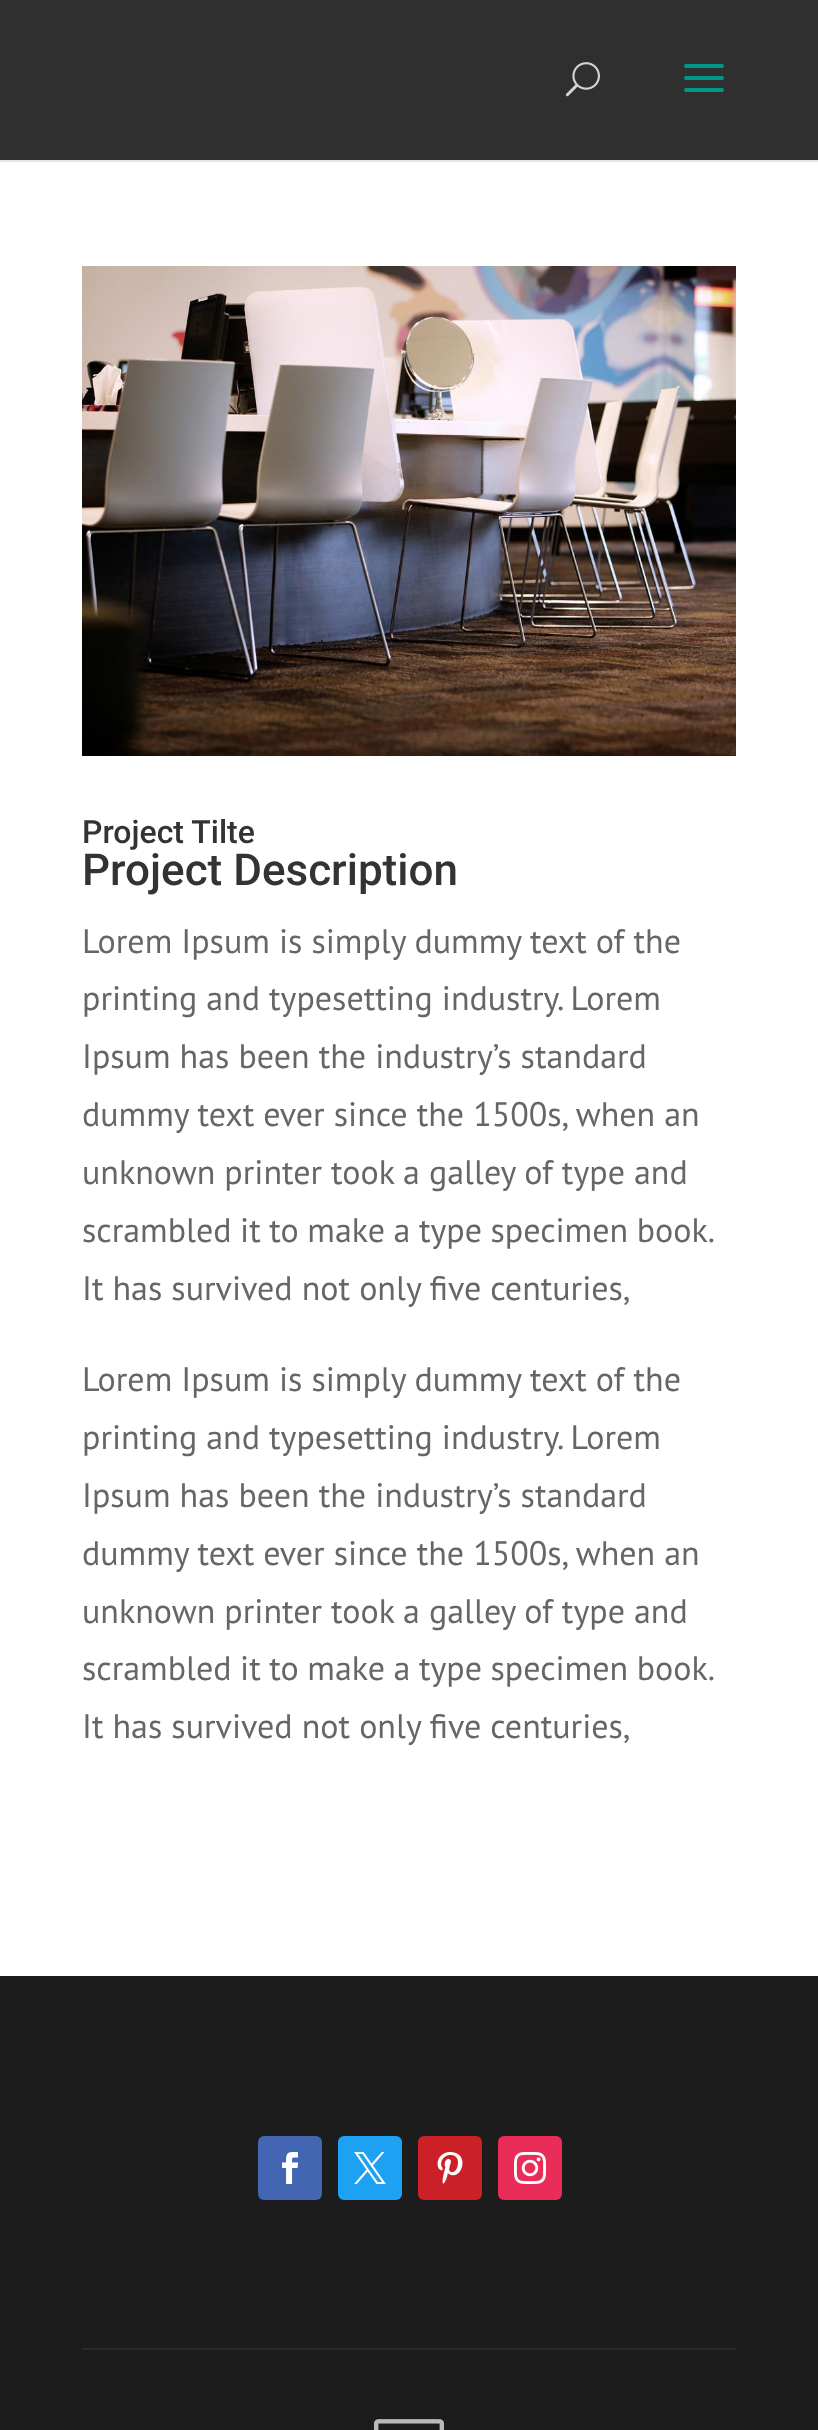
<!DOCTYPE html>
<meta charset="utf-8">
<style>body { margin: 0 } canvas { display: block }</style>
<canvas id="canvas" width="818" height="2430"></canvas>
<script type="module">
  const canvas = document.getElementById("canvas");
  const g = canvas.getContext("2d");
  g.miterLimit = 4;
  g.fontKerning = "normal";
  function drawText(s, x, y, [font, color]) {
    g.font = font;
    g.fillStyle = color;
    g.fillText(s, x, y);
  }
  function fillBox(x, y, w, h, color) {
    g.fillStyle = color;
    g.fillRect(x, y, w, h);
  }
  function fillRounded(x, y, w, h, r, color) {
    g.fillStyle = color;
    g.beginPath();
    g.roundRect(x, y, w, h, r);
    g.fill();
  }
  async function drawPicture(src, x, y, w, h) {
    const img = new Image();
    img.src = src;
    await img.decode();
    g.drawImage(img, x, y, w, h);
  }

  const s1 = ["500 32px Roboto", "#333333"];
  const s2 = ["500 44px Roboto", "#333333"];
  const s3 = ["34px PT Sans", "#666666"];

  fillBox(0, 0, 818, 2430, "#FFFFFF");
  fillBox(0, 160, 818, 2, "#E6E6E6");
  fillBox(0, 0, 818, 160, "#2F2F2F");
  await drawPicture("pic1.png", 565, 62, 35, 35);
  await drawPicture("pic2.png", 684, 64, 40, 28);
  await drawPicture("pic3.png", 82, 266, 654, 490);
  drawText("Project Tilte", 82, 843, s1);
  drawText("Project Description", 82, 885, s2);
  drawText("Lorem Ipsum is simply dummy text of the", 82, 953, s3);
  drawText("printing and typesetting industry. Lorem", 82, 1010, s3);
  drawText("Ipsum has been the industry’s standard", 82, 1068, s3);
  drawText("dummy text ever since the 1500s, when an", 82, 1126, s3);
  drawText("unknown printer took a galley of type and", 82, 1184, s3);
  g.wordSpacing = "-0.5px";
  drawText("scrambled it to make a type specimen book.", 82, 1242, s3);
  g.wordSpacing = "0px";
  drawText("It has survived not only five centuries,", 82, 1300, s3);
  drawText("Lorem Ipsum is simply dummy text of the", 82, 1391, s3);
  drawText("printing and typesetting industry. Lorem", 82, 1449, s3);
  drawText("Ipsum has been the industry’s standard", 82, 1507, s3);
  drawText("dummy text ever since the 1500s, when an", 82, 1565, s3);
  drawText("unknown printer took a galley of type and", 82, 1623, s3);
  g.wordSpacing = "-0.5px";
  drawText("scrambled it to make a type specimen book.", 82, 1680, s3);
  g.wordSpacing = "0px";
  drawText("It has survived not only five centuries,", 82, 1738, s3);
  fillBox(0, 1976, 818, 454, "#1C1C1C");
  fillBox(82, 2348, 654, 2, "#292929");
  fillRounded(258, 2136, 64, 64, 6, "#4266B2");
  await drawPicture("pic4.png", 282, 2152, 17, 32);
  fillRounded(338, 2136, 64, 64, 6, "#1DA1F2");
  await drawPicture("pic5.png", 354, 2152, 32, 32);
  fillRounded(418, 2136, 64, 64, 6, "#CB2027");
  await drawPicture("pic6.png", 437, 2152, 26, 32);
  fillRounded(498, 2136, 64, 64, 6, "#EA2C59");
  await drawPicture("pic7.png", 514, 2152, 32, 32);
  await drawPicture("pic8.png", 374, 2419, 70, 11);
</script>
